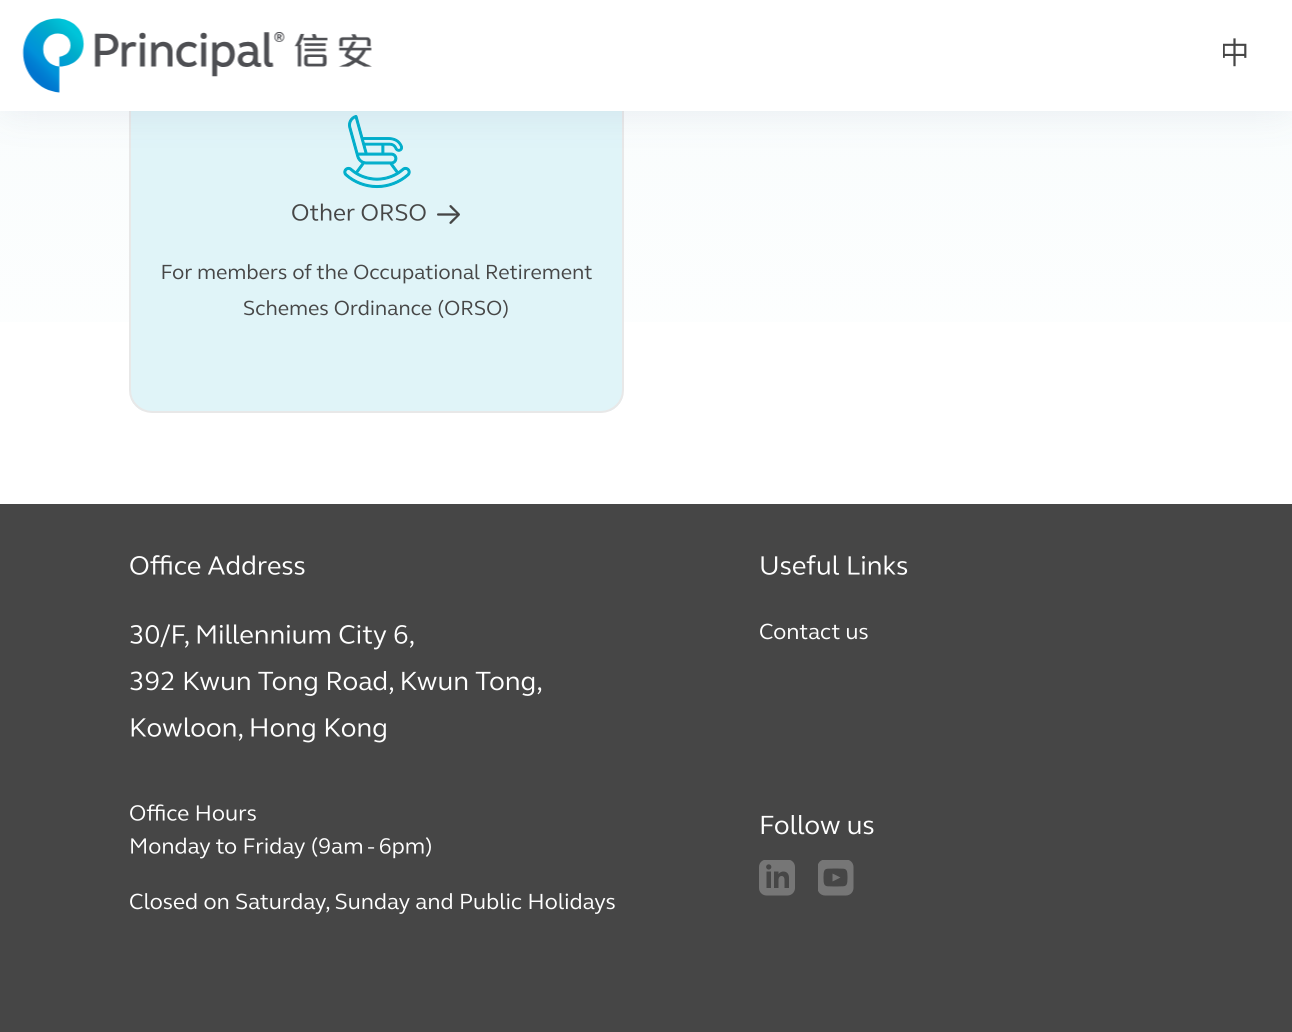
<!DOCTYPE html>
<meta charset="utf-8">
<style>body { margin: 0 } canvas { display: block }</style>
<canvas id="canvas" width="1292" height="1032"></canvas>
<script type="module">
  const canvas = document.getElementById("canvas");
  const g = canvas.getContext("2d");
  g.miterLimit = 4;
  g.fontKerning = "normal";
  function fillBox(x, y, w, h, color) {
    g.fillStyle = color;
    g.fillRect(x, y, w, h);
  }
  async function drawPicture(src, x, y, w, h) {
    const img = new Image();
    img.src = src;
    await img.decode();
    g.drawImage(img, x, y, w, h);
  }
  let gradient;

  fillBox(0, 0, 1292, 1032, "#FFFFFF");
  gradient = g.createLinearGradient(646, -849, 647, 480);
  gradient.addColorStop(0, "#EAF6F7");
  gradient.addColorStop(1, "#FFFFFF");
  g.fillStyle = gradient;
  g.fillRect(0, 111, 1292, 211);
  g.save();
  g.beginPath();
  g.roundRect(129, 57, 495, 356, 23);
  g.clip();
  gradient = g.createLinearGradient(452, 3, 301, 466);
  gradient.addColorStop(1, "#E0F4F8");
  gradient.addColorStop(1, "#DEF5FA");
  g.fillStyle = gradient;
  g.fillRect(131, 111, 492, 300);
  g.restore();
  g.beginPath();
  g.roundRect(130, 58, 493, 354, 22);
  g.strokeStyle = "#E8E8E8";
  g.lineWidth = 2;
  g.stroke();
  await drawPicture("pic3.png", 343, 115, 68, 74);
  g.fillStyle = "rgba(70, 78, 126, 0.1)";
  g.filter = "blur(19px)";
  g.beginPath();
  g.rect(0, 0, 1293, 111);
  g.fill();
  g.filter = "none";
  fillBox(0, 0, 1292, 111, "#FFFFFF");
  await drawPicture("pic1.png", 22, 18, 350, 75);
  await drawPicture("pic2.png", 1223, 38, 24, 29);
  await drawPicture("pic4.png", 292, 203, 134, 18);
  await drawPicture("pic5.png", 437, 205, 23, 19);
  await drawPicture("pic6.png", 162, 264, 430, 20);
  await drawPicture("pic7.png", 244, 299, 264, 20);
  fillBox(0, 504, 1292, 528, "#464646");
  await drawPicture("pic8.png", 130, 555, 175, 20);
  await drawPicture("pic9.png", 130, 624, 284, 26);
  await drawPicture("pic10.png", 130, 671, 412, 25);
  await drawPicture("pic11.png", 131, 717, 255, 26);
  await drawPicture("pic12.png", 761, 555, 147, 20);
  await drawPicture("pic13.png", 760, 623, 108, 17);
  await drawPicture("pic14.png", 130, 804, 126, 17);
  await drawPicture("pic15.png", 131, 837, 300, 22);
  await drawPicture("pic16.png", 130, 893, 485, 21);
  await drawPicture("pic17.png", 761, 815, 113, 20);
  await drawPicture("pic18.png", 759, 860, 36, 36);
  await drawPicture("pic19.png", 818, 860, 36, 36);
</script>
